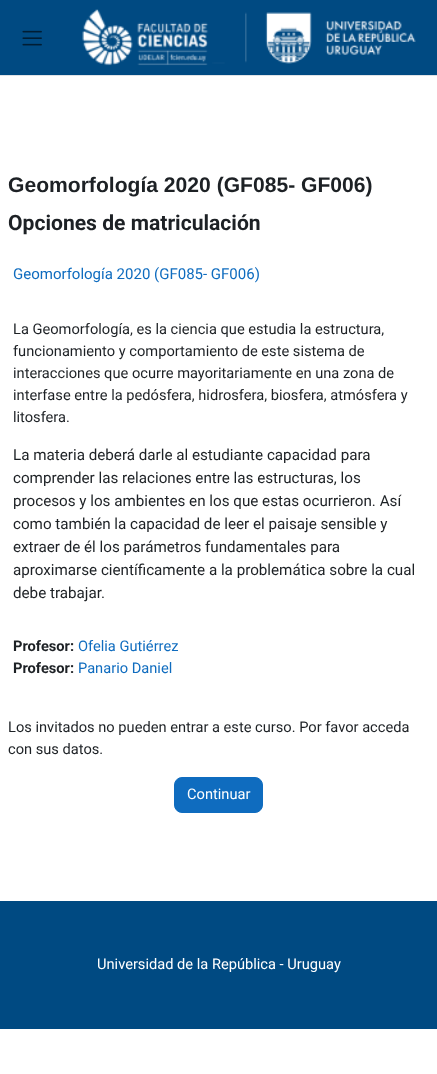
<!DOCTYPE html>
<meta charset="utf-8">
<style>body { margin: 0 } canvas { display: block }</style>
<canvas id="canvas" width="437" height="1074"></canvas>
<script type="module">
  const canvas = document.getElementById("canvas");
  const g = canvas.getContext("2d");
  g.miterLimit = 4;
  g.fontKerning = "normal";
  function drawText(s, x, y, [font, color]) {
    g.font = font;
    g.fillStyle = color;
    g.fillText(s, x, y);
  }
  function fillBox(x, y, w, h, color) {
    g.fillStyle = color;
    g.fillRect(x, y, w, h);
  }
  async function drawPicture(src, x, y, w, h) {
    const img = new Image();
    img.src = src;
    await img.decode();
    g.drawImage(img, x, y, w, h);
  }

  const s1 = ["bold 21.1px Liberation Sans", "#1D2125"];
  const s2 = ["bold 21.1px Roboto", "#1D2125"];
  const s3 = ["15px Roboto", "#0F6CBF"];
  const s4 = ["14.65px Roboto", "#1D2125"];
  const s5 = ["15.2px Roboto", "#1D2125"];
  const s6 = ["bold 14.65px Roboto", "#1D2125"];
  const s7 = ["14.65px Roboto", "#0F6CBF"];
  const s8 = ["14.65px Roboto", "#FFFFFF"];

  fillBox(0, 0, 437, 1074, "#FFFFFF");
  fillBox(0, 0, 437, 75, "#004A82");
  fillBox(0, 75, 437, 1, "#DEE2E6");
  await drawPicture("pic1.png", 22, 30, 20, 16);
  await drawPicture("pic2.png", 82, 9, 334, 57);
  drawText("Geomorfología 2020 (GF085- GF006)", 8, 192, s1);
  drawText("Opciones de matriculación", 8, 230, s2);
  drawText("Geomorfología 2020 (GF085- GF006)", 13, 279, s3);
  drawText("La Geomorfología, es la ciencia que estudia la estructura,", 13, 334, s4);
  drawText("funcionamiento y comportamiento de este sistema de", 13, 356, s4);
  drawText("interacciones que ocurre mayoritariamente en una zona de", 13, 378, s4);
  drawText("interfase entre la pedósfera, hidrosfera, biosfera, atmósfera y", 13, 400, s4);
  drawText("litosfera.", 13, 422, s4);
  drawText("La materia deberá darle al estudiante capacidad para", 13, 460, s5);
  drawText("comprender las relaciones entre las estructuras, los", 13, 483, s5);
  drawText("procesos y los ambientes en los que estas ocurrieron. Así", 13, 506, s5);
  drawText("como también la capacidad de leer el paisaje sensible y", 13, 529, s5);
  drawText("extraer de él los parámetros fundamentales para", 13, 552, s5);
  drawText("aproximarse científicamente a la problemática sobre la cual", 13, 575, s5);
  drawText("debe trabajar.", 13, 598, s5);
  drawText("Profesor:", 13, 651, s6);
  drawText("Ofelia Gutiérrez", 78, 651, s7);
  drawText("Profesor:", 13, 673, s6);
  drawText("Panario Daniel", 78, 673, s7);
  drawText("Los invitados no pueden entrar a este curso. Por favor acceda", 8, 732, s4);
  drawText("con sus datos.", 8, 754, s4);
  g.fillStyle = "#0F6CBF";
  g.beginPath();
  g.roundRect(174.5, 777.5, 88, 35, 7.5);
  g.fill();
  g.strokeStyle = "#0F6CBF";
  g.stroke();
  drawText("Continuar", 187, 799, s8);
  fillBox(0, 901, 437, 128, "#004A82");
  drawText("Universidad de la República - Uruguay", 97, 969, s8);
</script>
